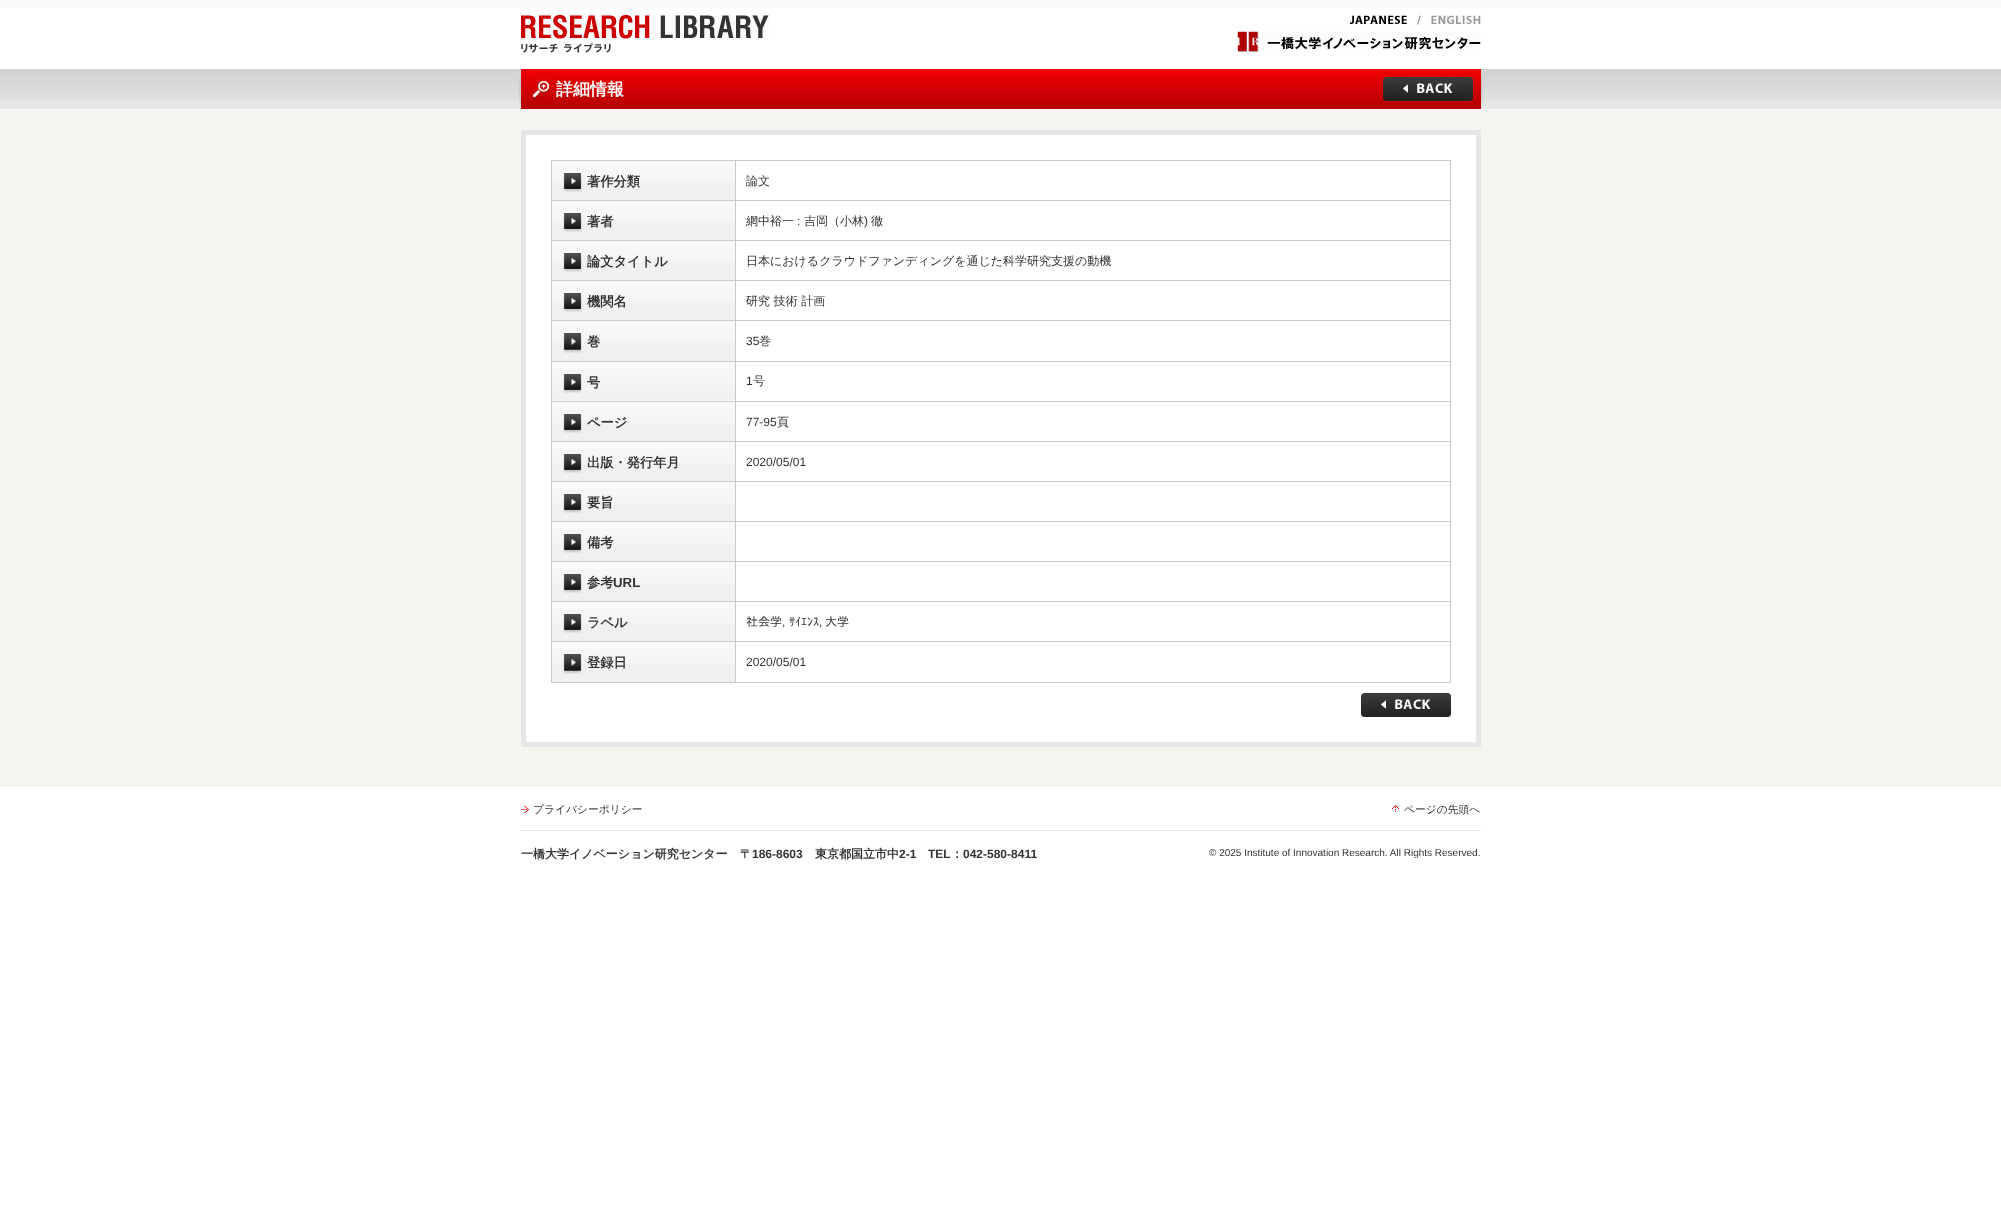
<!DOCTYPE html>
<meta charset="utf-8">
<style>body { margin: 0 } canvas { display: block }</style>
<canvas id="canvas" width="2001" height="1226"></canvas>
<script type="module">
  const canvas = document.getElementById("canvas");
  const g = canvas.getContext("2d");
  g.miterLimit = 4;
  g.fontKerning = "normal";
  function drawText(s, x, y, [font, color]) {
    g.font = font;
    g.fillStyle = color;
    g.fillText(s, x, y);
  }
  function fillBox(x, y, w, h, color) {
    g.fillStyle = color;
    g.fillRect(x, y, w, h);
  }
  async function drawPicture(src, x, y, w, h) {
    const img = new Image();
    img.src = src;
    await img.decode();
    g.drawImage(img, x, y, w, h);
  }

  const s1 = ["bold 17px WenQuanYi Zen Hei", "#FFFFFF"];
  const s2 = ["bold 13.25px WenQuanYi Zen Hei", "#333333"];
  const s3 = ["500 12px WenQuanYi Zen Hei", "#333333"];
  const s4 = ["12px Liberation Sans", "#333333"];
  const s5 = ["bold 13.25px Liberation Sans", "#333333"];
  const s6 = ["12px IPAPGothic", "#333333"];
  const s7 = ["500 10.75px WenQuanYi Zen Hei", "#333333"];
  const s8 = ["bold 12px WenQuanYi Zen Hei", "#333333"];
  const s9 = ["bold 12px Liberation Sans", "#333333"];
  const s10 = ["10px Liberation Sans", "#333333"];

  fillBox(0, 0, 2001, 1226, "#FFFFFF");
  fillBox(0, 0, 2001, 8, "#FAFAFA");
  await drawPicture("pic1.png", 521, 15, 248, 38);
  await drawPicture("pic2.png", 1350, 15, 57, 9);
  await drawPicture("pic3.png", 1417, 15, 4, 10);
  await drawPicture("pic4.png", 1431, 15, 50, 9);
  await drawPicture("pic5.png", 1237, 31, 244, 22);
  fillBox(0, 101, 2001, 8, "#E6E6E6");
  await drawPicture("pic6.png", 0, 69, 2001, 32);
  await drawPicture("pic7.png", 516, 69, 970, 30);
  await drawPicture("pic8.png", 516, 99, 970, 10);
  fillBox(521, 106, 960, 3, "#B40000");
  await drawPicture("pic9.png", 521, 69, 960, 37);
  drawText("詳細情報", 556, 95, s1);
  await drawPicture("pic10.png", 1383, 77, 90, 24);
  fillBox(0, 110, 2001, 677, "#F5F5F0");
  g.fillStyle = "#FFFFFF";
  g.beginPath();
  g.rect(523.5, 132.5, 955, 612);
  g.fill();
  g.strokeStyle = "#E6E6E6";
  g.lineWidth = 5;
  g.stroke();
  fillBox(551, 160, 900, 1, "#CACACA");
  fillBox(551, 160, 1, 523, "#CACACA");
  fillBox(552, 183, 183, 17, "#F0F0F0");
  await drawPicture("pic11.png", 552, 161, 183, 22);
  fillBox(735, 161, 1, 522, "#CACACA");
  fillBox(552, 200, 184, 1, "#CACACA");
  await drawPicture("pic12.png", 562, 173, 21, 19);
  drawText("著作分類", 587, 186, s2);
  fillBox(1450, 161, 1, 522, "#CACACA");
  fillBox(736, 200, 715, 1, "#CACACA");
  drawText("論文", 746, 185, s3);
  fillBox(552, 223, 183, 17, "#F0F0F0");
  await drawPicture("pic11.png", 552, 201, 183, 22);
  fillBox(552, 240, 899, 1, "#CACACA");
  await drawPicture("pic12.png", 562, 213, 21, 19);
  drawText("著者", 587, 226, s2);
  drawText("網中裕一", 746, 225, s3);
  drawText(":", 797, 225, s4);
  drawText("吉岡（小林", 804, 225, s3);
  drawText(")", 864, 225, s4);
  drawText("徹", 871, 225, s3);
  fillBox(552, 263, 183, 17, "#F0F0F0");
  await drawPicture("pic11.png", 552, 241, 183, 22);
  fillBox(552, 280, 899, 1, "#CACACA");
  await drawPicture("pic12.png", 562, 253, 21, 19);
  drawText("論文タイトル", 587, 266, s2);
  drawText("日本におけるクラウドファンディングを通じた科学研究支援の動機", 746, 265, s3);
  fillBox(552, 303, 183, 17, "#F0F0F0");
  await drawPicture("pic11.png", 552, 281, 183, 22);
  fillBox(552, 320, 899, 1, "#CACACA");
  await drawPicture("pic12.png", 562, 293, 21, 19);
  drawText("機関名", 587, 306, s2);
  drawText("研究 技術 計画", 746, 305, s3);
  fillBox(552, 343, 183, 18, "#F0F0F0");
  await drawPicture("pic11.png", 552, 321, 183, 22);
  fillBox(552, 361, 899, 1, "#CACACA");
  await drawPicture("pic13.png", 562, 333, 21, 20);
  drawText("巻", 587, 346, s2);
  drawText("35", 746, 345, s4);
  drawText("巻", 759, 345, s3);
  await drawPicture("pic14.png", 552, 362, 183, 39);
  fillBox(552, 401, 899, 1, "#CACACA");
  await drawPicture("pic12.png", 562, 374, 21, 19);
  drawText("号", 587, 387, s2);
  drawText("1", 746, 385, s4);
  drawText("号", 753, 385, s3);
  fillBox(552, 424, 183, 17, "#F0F0F0");
  await drawPicture("pic11.png", 552, 402, 183, 22);
  fillBox(552, 441, 899, 1, "#CACACA");
  await drawPicture("pic12.png", 562, 414, 21, 19);
  drawText("ページ", 587, 427, s2);
  drawText("77-95", 746, 426, s4);
  drawText("頁", 777, 426, s3);
  fillBox(552, 464, 183, 17, "#F0F0F0");
  await drawPicture("pic11.png", 552, 442, 183, 22);
  fillBox(552, 481, 899, 1, "#CACACA");
  await drawPicture("pic12.png", 562, 454, 21, 19);
  drawText("出版・発行年月", 587, 467, s2);
  drawText("2020/05/01", 746, 466, s4);
  fillBox(552, 504, 183, 17, "#F0F0F0");
  await drawPicture("pic11.png", 552, 482, 183, 22);
  fillBox(552, 521, 899, 1, "#CACACA");
  await drawPicture("pic15.png", 562, 494, 21, 19);
  drawText("要旨", 587, 507, s2);
  fillBox(552, 544, 183, 17, "#F0F0F0");
  await drawPicture("pic11.png", 552, 522, 183, 22);
  fillBox(552, 561, 899, 1, "#CACACA");
  await drawPicture("pic12.png", 562, 534, 21, 19);
  drawText("備考", 587, 547, s2);
  fillBox(552, 584, 183, 17, "#F0F0F0");
  await drawPicture("pic11.png", 552, 562, 183, 22);
  fillBox(552, 601, 899, 1, "#CACACA");
  await drawPicture("pic12.png", 562, 574, 21, 19);
  drawText("参考", 587, 587, s2);
  drawText("URL", 613, 587, s5);
  fillBox(552, 624, 183, 17, "#F0F0F0");
  await drawPicture("pic11.png", 552, 602, 183, 22);
  fillBox(552, 641, 899, 1, "#CACACA");
  await drawPicture("pic12.png", 562, 614, 21, 19);
  drawText("ラベル", 587, 627, s2);
  drawText("社会学", 746, 626, s6);
  drawText(",", 782, 626, s4);
  drawText("ｻｲｴﾝｽ", 789, 626, s6);
  drawText(",", 819, 626, s4);
  drawText("大学", 825, 626, s6);
  fillBox(552, 664, 183, 18, "#F0F0F0");
  await drawPicture("pic11.png", 552, 642, 183, 22);
  fillBox(552, 682, 899, 1, "#CACACA");
  await drawPicture("pic13.png", 562, 654, 21, 20);
  drawText("登録日", 587, 667, s2);
  drawText("2020/05/01", 746, 666, s4);
  await drawPicture("pic16.png", 1361, 693, 90, 24);
  fillBox(521, 830, 960, 1, "#E6E6E6");
  await drawPicture("pic17.png", 521, 806, 8, 7);
  drawText("プライバシーポリシー", 533, 813, s7);
  await drawPicture("pic18.png", 1392, 805, 7, 7);
  drawText("ページの先頭へ", 1404, 813, s7);
  drawText("一橋大学イノベーション研究センター", 521, 858, s8);
  drawText("〒", 740, 858, s8);
  drawText("186-8603", 752, 858, s9);
  drawText("東京都国立市中", 815, 858, s8);
  drawText("2-1", 899, 858, s9);
  drawText("TEL", 928, 858, s9);
  drawText("：", 951, 858, s8);
  drawText("042-580-8411", 963, 858, s9);
  drawText("© 2025 Institute of Innovation Research. All Rights Reserved.", 1209, 856, s10);
</script>
